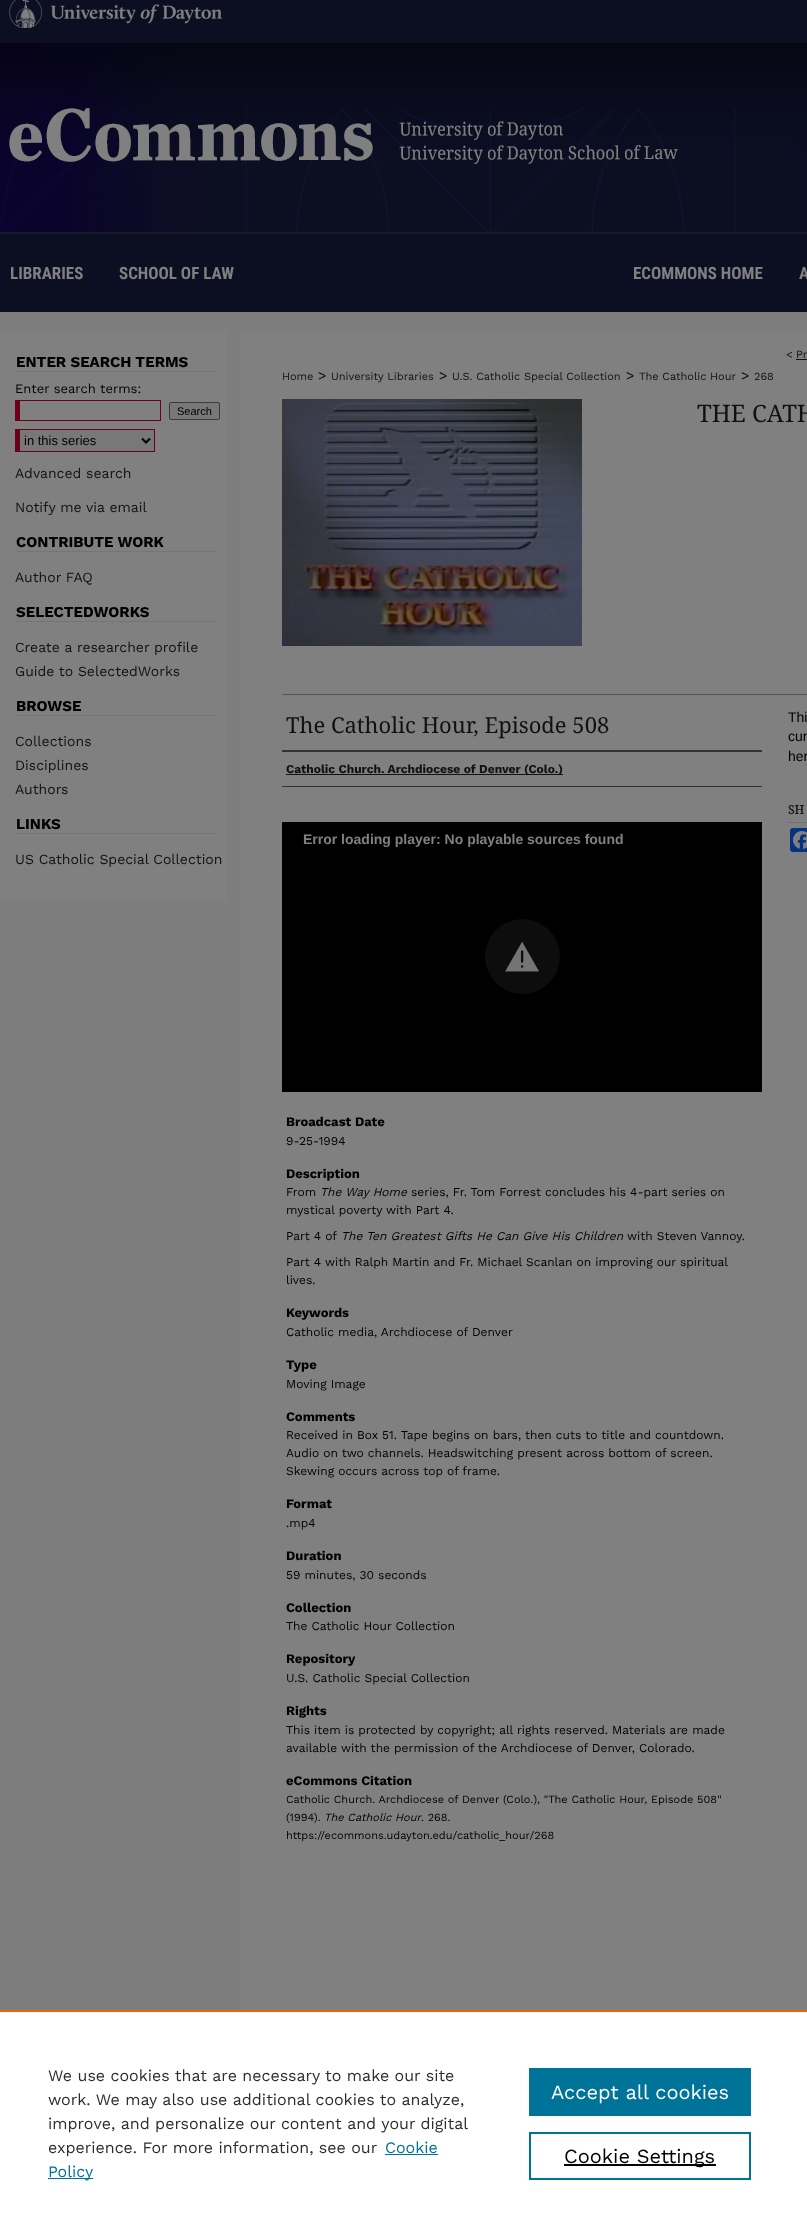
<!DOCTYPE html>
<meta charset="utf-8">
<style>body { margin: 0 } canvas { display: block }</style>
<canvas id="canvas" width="807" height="2236"></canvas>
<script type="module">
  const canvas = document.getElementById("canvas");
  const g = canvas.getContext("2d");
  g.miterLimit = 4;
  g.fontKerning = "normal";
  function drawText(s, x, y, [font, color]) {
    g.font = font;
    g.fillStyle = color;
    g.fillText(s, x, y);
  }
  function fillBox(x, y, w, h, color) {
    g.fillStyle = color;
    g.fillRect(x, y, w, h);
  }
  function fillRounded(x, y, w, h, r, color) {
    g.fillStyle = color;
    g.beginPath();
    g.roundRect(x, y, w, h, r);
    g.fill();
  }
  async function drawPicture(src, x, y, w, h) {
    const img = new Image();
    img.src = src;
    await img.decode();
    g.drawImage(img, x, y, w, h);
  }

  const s1 = ["bold 17px Roboto Condensed", "#808080"];
  const s2 = ["bold 15px Work Sans", "#000000"];
  const s3 = ["13px Work Sans", "#000000"];
  const s4 = ["11px Liberation Sans", "#000000"];
  const s5 = ["13px Liberation Sans", "#000000"];
  const s6 = ["14px Work Sans", "#111111"];
  const s7 = ["11px Work Sans", "#111111"];
  const s8 = ["14px Work Sans", "#000000"];
  const s9 = ["24px Noto Serif", "#111111"];
  const s10 = ["22px Noto Serif", "#111111"];
  const s11 = ["bold 12px Work Sans", "#111111"];
  const s12 = ["bold 14px Liberation Sans", "#808080"];
  const s13 = ["bold 13px Work Sans", "#000000"];
  const s14 = ["12px Work Sans", "#000000"];
  const s15 = ["italic 12px Work Sans", "#000000"];
  const s16 = ["11px Work Sans", "#000000"];
  const s17 = ["italic 11px Work Sans", "#000000"];
  const s18 = ["14px Liberation Sans", "#000000"];
  const s19 = ["bold 12px Noto Serif", "#1A1A1A"];
  const s20 = ["16px Work Sans", "#2E2E2E"];
  const s21 = ["16px Work Sans", "#007398"];
  const s22 = ["20px Work Sans", "#FFFFFF"];
  const s23 = ["20px Work Sans", "#000000"];

  fillBox(0, 0, 807, 2236, "#7D7D7D");
  await drawPicture("pic1.png", 0, 234, 807, 78);
  await drawPicture("pic2.png", 0, 0, 807, 234);
  drawText("LIBRARIES", 10, 279, s1);
  drawText("SCHOOL OF LAW", 119, 279, s1);
  drawText("ECOMMONS HOME", 633, 279, s1);
  drawText("A", 799, 279, s1);
  fillBox(240, 331, 567, 1679, "#808080");
  fillBox(0, 331, 227, 570, "#808080");
  fillBox(16, 371, 200, 1, "#757575");
  drawText("ENTER SEARCH TERMS", 16, 367, s2);
  drawText("Enter search terms:", 15, 393, s3);
  fillBox(15, 400, 146, 1, "#6C001B");
  fillBox(160, 400, 1, 21, "#6C001B");
  fillBox(15, 420, 146, 1, "#6C001B");
  fillBox(15, 400, 5, 21, "#6C001B");
  g.fillStyle = "#787878";
  g.beginPath();
  g.roundRect(169.5, 402.5, 50, 17, 1.5);
  g.fill();
  g.strokeStyle = "#3B3B3B";
  g.stroke();
  drawText("Search", 177, 415, s4);
  fillBox(20, 430, 134, 21, "#787878");
  fillBox(15, 429, 140, 1, "#6C001B");
  fillBox(154, 429, 1, 23, "#6C001B");
  fillBox(15, 451, 140, 1, "#6C001B");
  fillBox(15, 429, 5, 23, "#6C001B");
  g.beginPath();
  g.moveTo(142, 438.5);
  g.lineTo(146, 442.5);
  g.lineTo(150, 438.5);
  g.strokeStyle = "#000000";
  g.lineWidth = 2;
  g.stroke();
  drawText("in this series", 24, 445, s5);
  drawText("Advanced search", 15, 478, s6);
  drawText("Notify me via email", 15, 512, s6);
  fillBox(16, 551, 200, 1, "#757575");
  drawText("CONTRIBUTE WORK", 16, 547, s2);
  drawText("Author FAQ", 15, 582, s6);
  fillBox(16, 621, 200, 1, "#757575");
  drawText("SELECTEDWORKS", 16, 617, s2);
  drawText("Create a researcher profile", 15, 652, s6);
  drawText("Guide to SelectedWorks", 15, 676, s6);
  fillBox(16, 715, 200, 1, "#757575");
  drawText("BROWSE", 16, 711, s2);
  drawText("Collections", 15, 746, s6);
  drawText("Disciplines", 15, 770, s6);
  drawText("Authors", 15, 794, s6);
  fillBox(16, 833, 200, 1, "#757575");
  drawText("LINKS", 16, 829, s2);
  drawText("US Catholic Special Collection", 15, 864, s6);
  drawText("<", 786, 358, s7);
  drawText("Pr", 796, 358, s7);
  fillBox(796, 359, 11, 1, "#121212");
  drawText("Home", 282, 380, s7);
  drawText(">", 318, 380, s8);
  drawText("University Libraries", 331, 380, s7);
  drawText(">", 439, 380, s8);
  drawText("U.S. Catholic Special Collection", 452, 380, s7);
  drawText(">", 626, 380, s8);
  drawText("The Catholic Hour", 639, 380, s7);
  drawText(">", 741, 380, s8);
  drawText("268", 754, 380, s7);
  await drawPicture("pic3.png", 282, 399, 300, 247);
  drawText("THE CATH", 697, 422, s9);
  fillBox(282, 694, 525, 1, "#555555");
  drawText("The Catholic Hour, Episode 508", 286, 733, s10);
  fillBox(282, 750, 480, 2, "#333333");
  fillBox(282, 786, 480, 1, "#333333");
  fillBox(286, 774, 277, 1, "#121212");
  drawText("Catholic Church. Archdiocese of Denver (Colo.)", 286, 773, s11);
  fillBox(282, 822, 480, 270, "#000000");
  drawText("Error loading player: No playable sources found", 303, 844, s12);
  g.fillStyle = "#0D0D0D";
  g.beginPath();
  g.arc(522.5, 956.5, 37.5, 0, Math.PI * 2);
  g.fill();
  await drawPicture("pic4.png", 505, 941, 34, 31);
  drawText("Broadcast Date", 286, 1126, s13);
  drawText("9-25-1994", 286, 1145, s14);
  drawText("Description", 286, 1178, s13);
  drawText("From", 286, 1196, s14);
  drawText("The Way Home", 320, 1196, s15);
  drawText("series, Fr. Tom Forrest concludes his 4-part series on", 411, 1196, s14);
  drawText("mystical poverty with Part 4.", 286, 1214, s14);
  drawText("Part 4 of", 286, 1240, s14);
  drawText("The Ten Greatest Gifts He Can Give His Children", 341, 1240, s15);
  drawText("with Steven Vannoy.", 627, 1240, s14);
  drawText("Part 4 with Ralph Martin and Fr. Michael Scanlan on improving our spiritual", 286, 1266, s14);
  drawText("lives.", 286, 1284, s14);
  drawText("Keywords", 286, 1317, s13);
  drawText("Catholic media, Archdiocese of Denver", 286, 1336, s14);
  drawText("Type", 286, 1369, s13);
  drawText("Moving Image", 286, 1388, s14);
  drawText("Comments", 286, 1421, s13);
  drawText("Received in Box 51. Tape begins on bars, then cuts to title and countdown.", 286, 1439, s14);
  drawText("Audio on two channels. Headswitching present across bottom of screen.", 286, 1457, s14);
  drawText("Skewing occurs across top of frame.", 286, 1475, s14);
  drawText("Format", 286, 1508, s13);
  drawText(".mp4", 286, 1527, s14);
  drawText("Duration", 286, 1560, s13);
  drawText("59 minutes, 30 seconds", 286, 1579, s14);
  drawText("Collection", 286, 1612, s13);
  drawText("The Catholic Hour Collection", 286, 1630, s14);
  drawText("Repository", 286, 1663, s13);
  drawText("U.S. Catholic Special Collection", 286, 1682, s14);
  drawText("Rights", 286, 1715, s13);
  drawText("This item is protected by copyright; all rights reserved. Materials are made", 286, 1734, s14);
  drawText("available with the permission of the Archdiocese of Denver, Colorado.", 286, 1752, s14);
  drawText("eCommons Citation", 286, 1785, s13);
  drawText("Catholic Church. Archdiocese of Denver (Colo.), \"The Catholic Hour, Episode 508\"", 286, 1803, s16);
  drawText("(1994).", 286, 1821, s16);
  drawText("The Catholic Hour", 324, 1821, s17);
  drawText(". 268.", 421, 1821, s16);
  drawText("https://ecommons.udayton.edu/catholic_hour/268", 286, 1839, s16);
  drawText("Thi", 788, 722, s18);
  drawText("cur", 788, 741, s18);
  drawText("her", 788, 761, s18);
  fillBox(788, 822, 19, 1, "#6F6F6F");
  drawText("SH", 788, 814, s19);
  fillRounded(790, 828, 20, 24, 3, "#043380");
  await drawPicture("pic5.png", 793, 831, 14, 18);
  fillBox(0, 2012, 807, 224, "#FFFFFF");
  fillBox(0, 2010, 807, 2, "#EB6500");
  drawText("We use cookies that are necessary to make our site", 48, 2081, s20);
  drawText("work. We may also use additional cookies to analyze,", 48, 2105, s20);
  drawText("improve, and personalize our content and your digital", 48, 2129, s20);
  drawText("experience. For more information, see our", 48, 2153, s20);
  drawText("Cookie", 385, 2153, s21);
  fillBox(385, 2154, 53, 1, "#007398");
  fillBox(48, 2178, 45, 1, "#007398");
  drawText("Policy", 48, 2177, s21);
  fillBox(529, 2068, 222, 48, "#007398");
  drawText("Accept all cookies", 551, 2099, s22);
  g.strokeStyle = "#007398";
  g.strokeRect(530, 2133, 220, 46);
  fillBox(564, 2164, 152, 2, "#000000");
  drawText("Cookie Settings", 564, 2163, s23);
</script>
